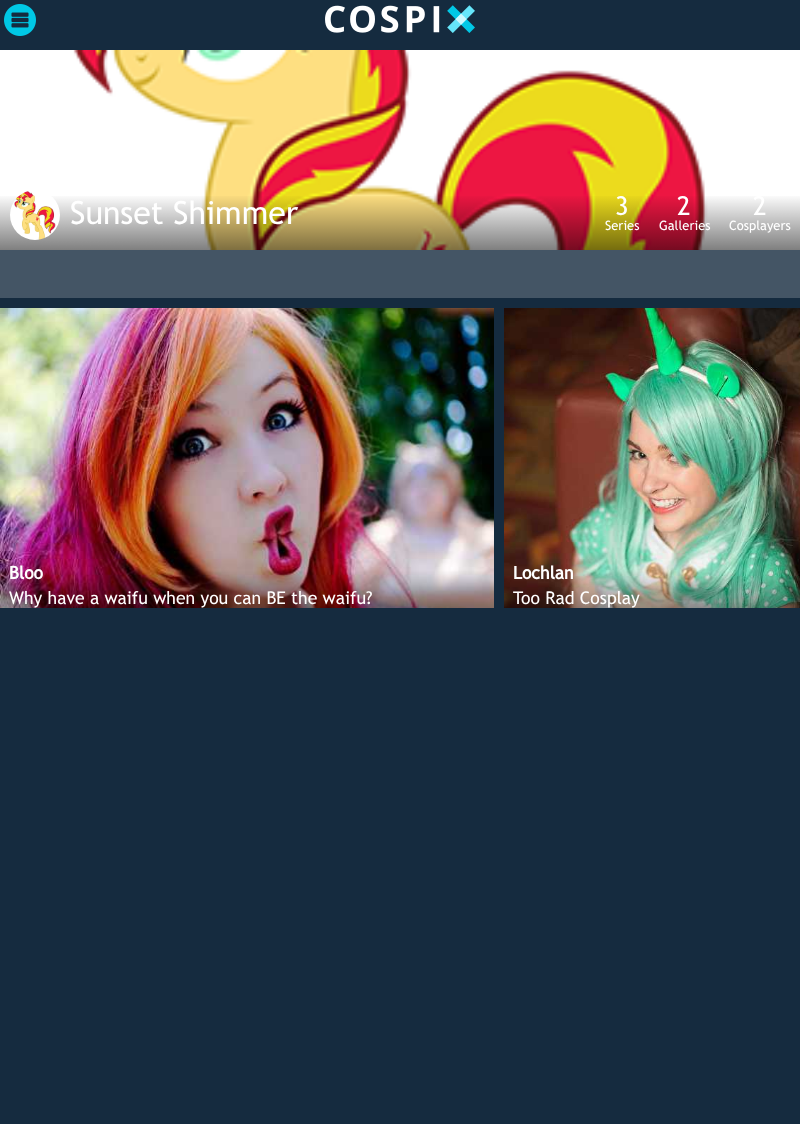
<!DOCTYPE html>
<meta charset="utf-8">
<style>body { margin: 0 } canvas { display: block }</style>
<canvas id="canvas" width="800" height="1124"></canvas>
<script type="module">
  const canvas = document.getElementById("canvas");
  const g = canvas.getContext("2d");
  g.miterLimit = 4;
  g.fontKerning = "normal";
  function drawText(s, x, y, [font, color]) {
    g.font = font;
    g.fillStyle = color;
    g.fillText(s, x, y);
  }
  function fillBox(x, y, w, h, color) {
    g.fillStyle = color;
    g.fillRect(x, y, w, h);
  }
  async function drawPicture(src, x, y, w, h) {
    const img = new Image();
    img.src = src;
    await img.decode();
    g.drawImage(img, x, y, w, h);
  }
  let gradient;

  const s1 = ["32px Trebuchet MS", "#FFFFFF"];
  const s2 = ["26px Trebuchet MS", "#FFFFFF"];
  const s3 = ["13px Trebuchet MS", "#FFFFFF"];
  const s4 = ["bold 17.6px Trebuchet MS", "#FFFFFF"];
  const s5 = ["17.6px Trebuchet MS", "#FFFFFF"];

  fillBox(0, 0, 800, 1124, "#152B3F");
  await drawPicture("pic1.png", 4, 4, 32, 32);
  await drawPicture("pic2.png", 325, 5, 150, 28);
  fillBox(0, 50, 800, 200, "#FFFFFF");
  await drawPicture("pic3.png", 73, 50, 635, 200);
  gradient = g.createLinearGradient(400, 194, 400, 250);
  gradient.addColorStop(0, "rgba(0, 0, 0, 0)");
  gradient.addColorStop(1, "rgba(0, 0, 0, 0.5)");
  g.fillStyle = gradient;
  g.fillRect(0, 196, 800, 54);
  await drawPicture("pic4.png", 10, 191, 50, 49);
  drawText("Sunset Shimmer", 70, 224, s1);
  drawText("3", 615, 215, s2);
  drawText("Series", 605, 230, s3);
  drawText("2", 677, 215, s2);
  drawText("Galleries", 659, 230, s3);
  drawText("2", 753, 215, s2);
  drawText("Cosplayers", 729, 230, s3);
  fillBox(0, 250, 800, 48, "#445565");
  await drawPicture("pic5.png", 0, 308, 494, 300);
  drawText("Bloo", 9, 579, s4);
  drawText("Why have a waifu when you can BE the waifu?", 9, 604, s5);
  await drawPicture("pic6.png", 504, 308, 296, 300);
  drawText("Lochlan", 513, 579, s4);
  drawText("Too Rad Cosplay", 513, 604, s5);
</script>
